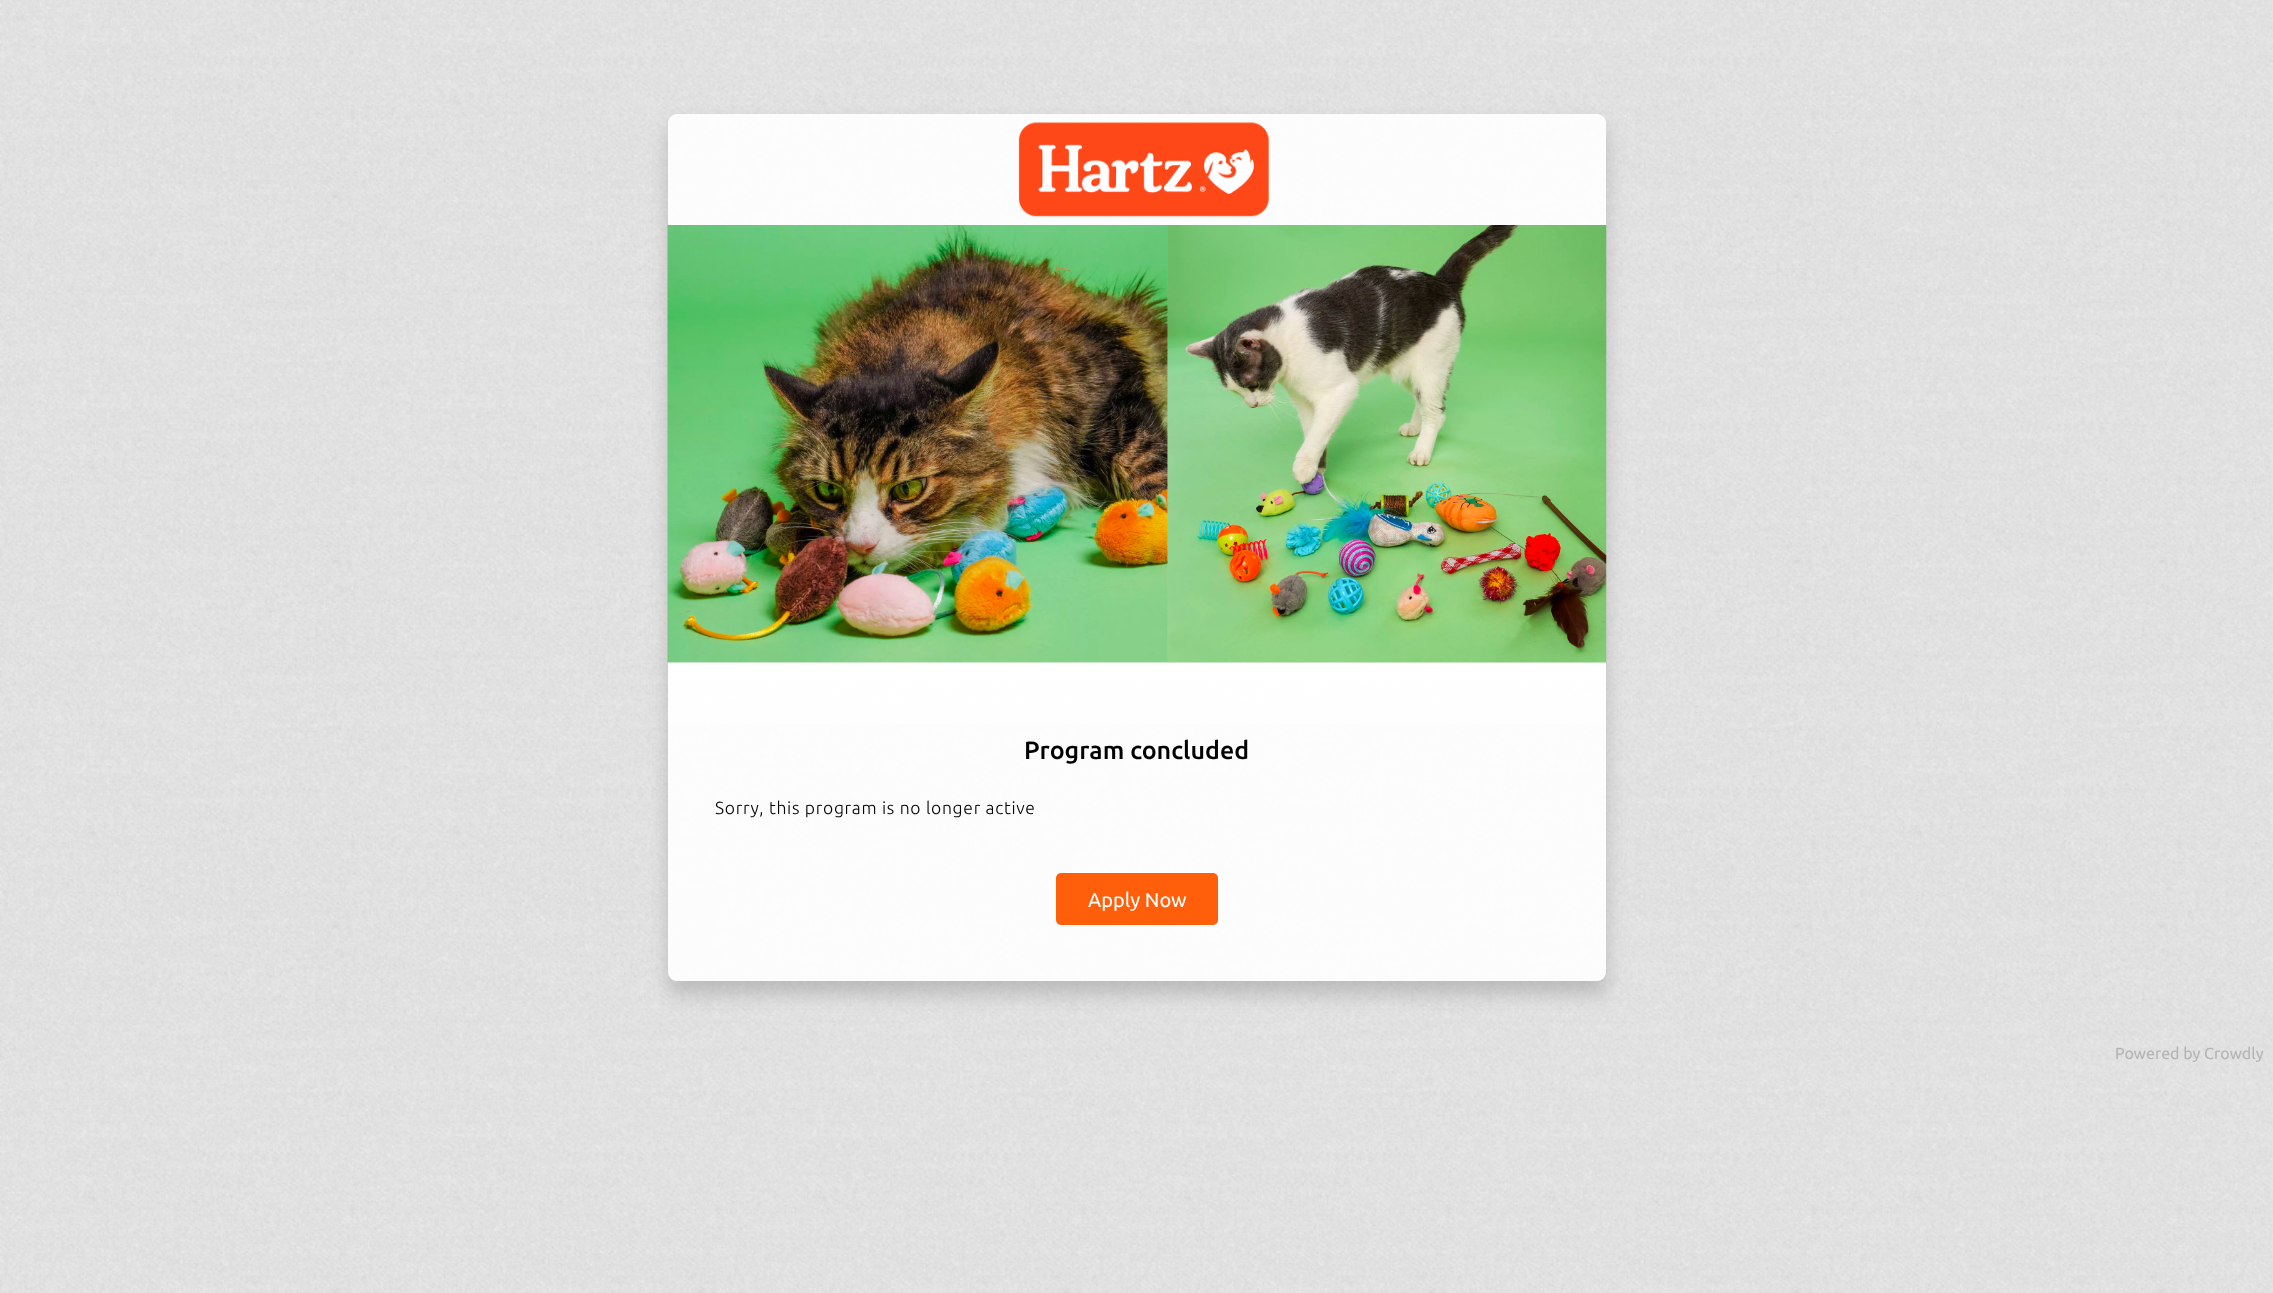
<!DOCTYPE html>
<meta charset="utf-8">
<style>body { margin: 0 } canvas { display: block }</style>
<canvas id="canvas" width="2273" height="1293"></canvas>
<script type="module">
  const canvas = document.getElementById("canvas");
  const g = canvas.getContext("2d");
  g.miterLimit = 4;
  g.fontKerning = "normal";
  function drawText(s, x, y, [font, color]) {
    g.font = font;
    g.fillStyle = color;
    g.fillText(s, x, y);
  }
  function fillBox(x, y, w, h, color) {
    g.fillStyle = color;
    g.fillRect(x, y, w, h);
  }
  function fillRounded(x, y, w, h, r, color) {
    g.fillStyle = color;
    g.beginPath();
    g.roundRect(x, y, w, h, r);
    g.fill();
  }
  async function drawPicture(src, x, y, w, h) {
    const img = new Image();
    img.src = src;
    await img.decode();
    g.drawImage(img, x, y, w, h);
  }
  let gradient;

  const s1 = ["500 25px Ubuntu", "#000000"];
  const s2 = ["300 17.5px Ubuntu", "#000000"];
  const s3 = ["20px Ubuntu", "#FFFFFF"];
  const s4 = ["16px Ubuntu", "#B4B4B4"];

  fillBox(0, 0, 2273, 1293, "#FFFFFF");
  await drawPicture("pic1.png", 0, 0, 2273, 1293);
  g.save();
  g.beginPath();
  g.moveTo(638, 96);
  g.lineTo(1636, 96);
  g.lineTo(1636, 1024);
  g.lineTo(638, 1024);
  g.closePath();
  g.moveTo(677, 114);
  g.lineTo(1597, 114);
  g.bezierCurveTo(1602, 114, 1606, 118, 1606, 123);
  g.lineTo(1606, 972);
  g.bezierCurveTo(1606, 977, 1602, 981, 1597, 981);
  g.lineTo(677, 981);
  g.bezierCurveTo(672, 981, 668, 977, 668, 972);
  g.lineTo(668, 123);
  g.bezierCurveTo(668, 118, 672, 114, 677, 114);
  g.closePath();
  g.clip("evenodd");
  g.fillStyle = "rgba(150, 150, 150, 0.5)";
  g.filter = "blur(9.5px)";
  g.beginPath();
  g.roundRect(668, 126, 938, 868, 9);
  g.fill();
  g.filter = "none";
  g.restore();
  fillRounded(668, 114, 938, 867, 9, "rgba(255, 255, 255, 0.9)");
  await drawPicture("pic2.png", 1018, 122, 251, 95);
  await drawPicture("pic3.png", 667, 225, 940, 438);
  gradient = g.createLinearGradient(1137, 663, 1137, 981);
  gradient.addColorStop(0, "rgba(255, 255, 255, 0.9)");
  gradient.addColorStop(0.33, "rgba(255, 255, 255, 0.5)");
  gradient.addColorStop(0.67, "rgba(255, 255, 255, 0.3)");
  gradient.addColorStop(1, "rgba(255, 255, 255, 0)");
  g.fillStyle = gradient;
  g.fillRect(668, 663, 938, 61);
  drawText("Program concluded", 1024, 759, s1);
  g.letterSpacing = "0.7px";
  drawText("Sorry, this program is no longer active", 715, 814, s2);
  fillRounded(1056, 873, 162, 52, 5, "#FF5E0A");
  g.letterSpacing = "0px";
  drawText("Apply Now", 1088, 907, s3);
  drawText("Powered by Crowdly", 2115, 1059, s4);
</script>
